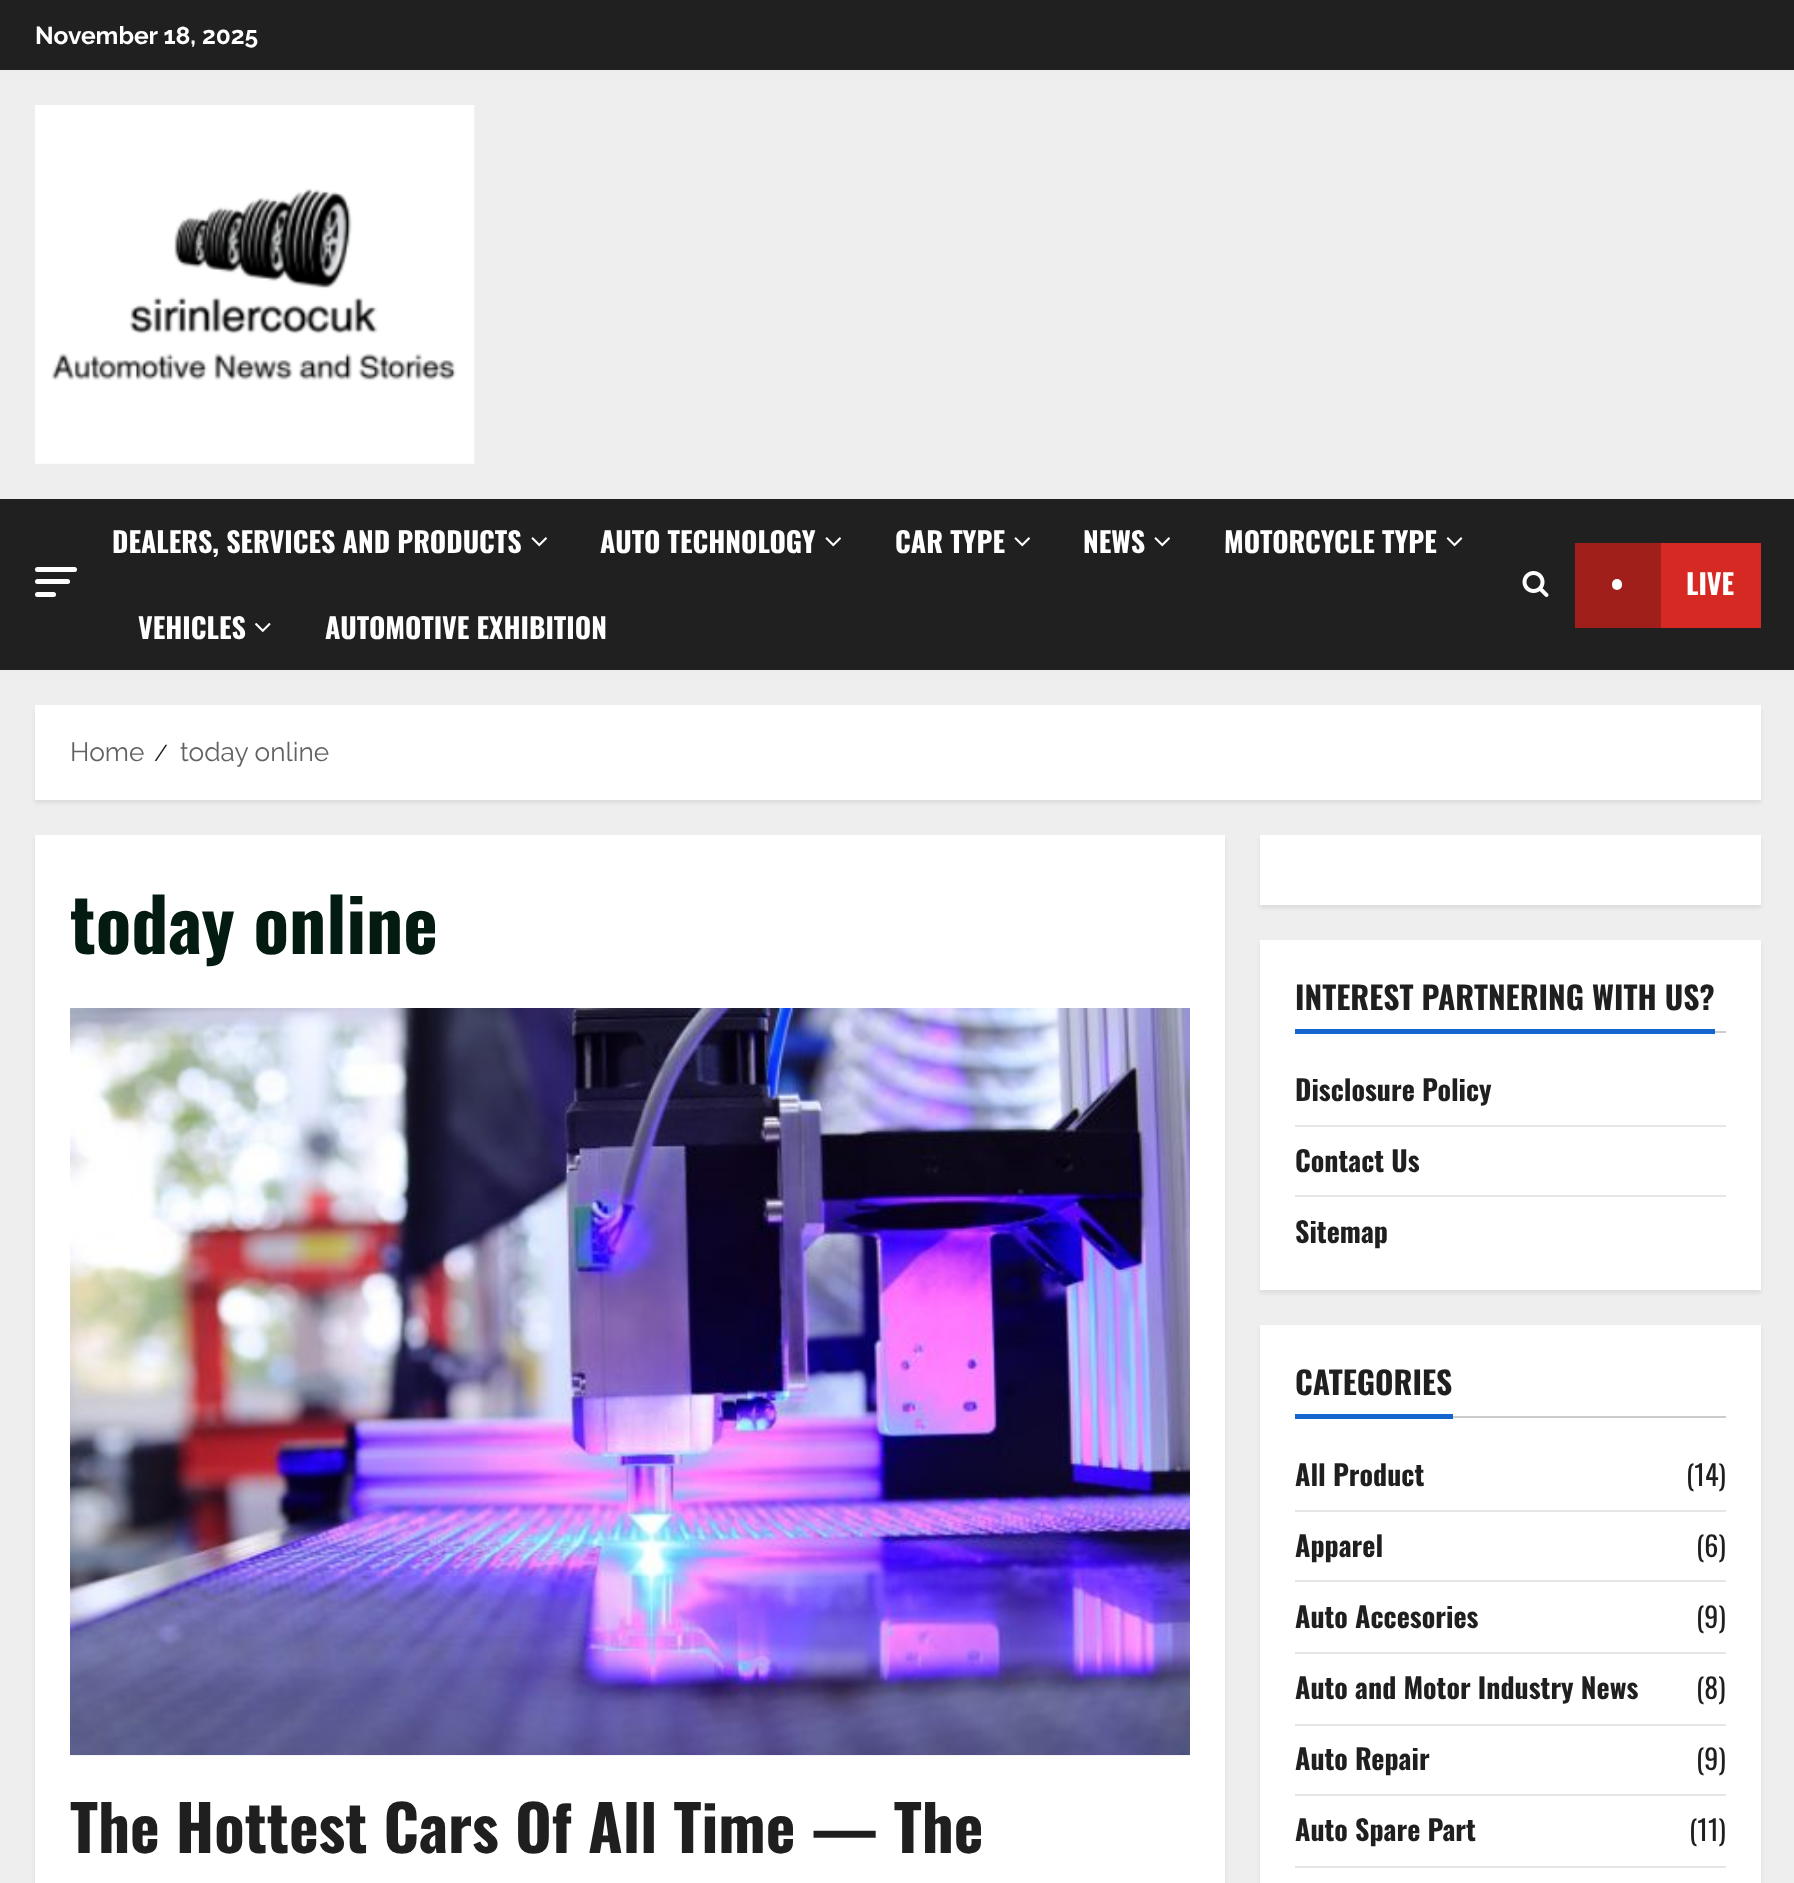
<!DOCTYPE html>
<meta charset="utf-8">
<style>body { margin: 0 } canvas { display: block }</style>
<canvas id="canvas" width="1794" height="1883"></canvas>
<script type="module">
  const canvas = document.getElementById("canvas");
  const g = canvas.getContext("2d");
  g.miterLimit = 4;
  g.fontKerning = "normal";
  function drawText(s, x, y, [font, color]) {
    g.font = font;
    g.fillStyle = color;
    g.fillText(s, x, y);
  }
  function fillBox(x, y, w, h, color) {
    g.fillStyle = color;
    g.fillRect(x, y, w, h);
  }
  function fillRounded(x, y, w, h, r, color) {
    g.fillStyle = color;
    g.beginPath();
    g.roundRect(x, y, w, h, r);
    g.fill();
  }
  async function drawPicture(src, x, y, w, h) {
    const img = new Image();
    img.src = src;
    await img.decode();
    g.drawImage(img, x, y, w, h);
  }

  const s1 = ["bold 24.5px Raleway", "#FFFFFF"];
  const s2 = ["bold 28px Oswald", "#FFFFFF"];
  const s3 = ["26.25px Raleway", "#626262"];
  const s4 = ["23px Raleway", "#1F1F1F"];
  const s5 = ["bold 73.5px Oswald", "#031B11"];
  const s6 = ["bold 63px Oswald", "#1F1F1F"];
  const s7 = ["bold 31.5px Oswald", "#1F1F1F"];
  const s8 = ["bold 28px Oswald", "#1F1F1F"];
  const s9 = ["28px Oswald", "#1F1F1F"];

  fillBox(0, 0, 1794, 1883, "#EEEEEE");
  fillBox(0, 0, 1794, 70, "#202020");
  drawText("November 18, 2025", 35, 44, s1);
  await drawPicture("pic1.png", 35, 105, 440, 359);
  fillBox(0, 499, 1794, 171, "#202020");
  fillRounded(35, 567, 42, 5, 2.5, "#FFFFFF");
  fillRounded(35, 579, 35, 5, 2.5, "#FFFFFF");
  fillRounded(35, 592, 21, 5, 2.5, "#FFFFFF");
  drawText("DEALERS, SERVICES AND PRODUCTS", 112, 553, s2);
  await drawPicture("pic2.png", 531, 537, 16, 10);
  drawText("AUTO TECHNOLOGY", 600, 553, s2);
  await drawPicture("pic2.png", 825, 537, 16, 10);
  drawText("CAR TYPE", 895, 553, s2);
  await drawPicture("pic2.png", 1014, 537, 16, 10);
  drawText("NEWS", 1083, 553, s2);
  await drawPicture("pic2.png", 1154, 537, 16, 10);
  drawText("MOTORCYCLE TYPE", 1224, 553, s2);
  await drawPicture("pic3.png", 1446, 537, 17, 10);
  drawText("VEHICLES", 138, 639, s2);
  await drawPicture("pic4.png", 255, 623, 16, 9);
  drawText("AUTOMOTIVE EXHIBITION", 325, 639, s2);
  await drawPicture("pic5.png", 1522, 571, 27, 26);
  fillBox(1661, 543, 100, 85, "#D72924");
  fillBox(1575, 543, 86, 85, "#A11F1B");
  fillRounded(1612, 579, 10, 11, 5, "#FFFFFF");
  drawText("LIVE", 1686, 595, s2);
  g.fillStyle = "rgba(0, 0, 0, 0.08)";
  g.filter = "blur(2px)";
  g.beginPath();
  g.rect(35, 709, 1726, 94);
  g.fill();
  g.filter = "none";
  fillBox(35, 705, 1726, 95, "#FFFFFF");
  drawText("Home", 70, 761, s3);
  drawText("/", 154, 761, s4);
  drawText("today online", 180, 761, s3);
  g.fillStyle = "rgba(0, 0, 0, 0.08)";
  g.filter = "blur(2px)";
  g.beginPath();
  g.rect(35, 838, 1190, 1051);
  g.fill();
  g.filter = "none";
  fillBox(35, 835, 1190, 1048, "#FFFFFF");
  drawText("today online", 70, 954, s5);
  await drawPicture("pic6.png", 70, 1008, 1120, 748);
  drawText("The Hottest Cars Of All Time — The", 70, 1853, s6);
  g.fillStyle = "rgba(0, 0, 0, 0.08)";
  g.filter = "blur(2px)";
  g.beginPath();
  g.rect(1260, 838, 501, 70);
  g.fill();
  g.filter = "none";
  fillBox(1260, 835, 501, 70, "#FFFFFF");
  g.fillStyle = "rgba(0, 0, 0, 0.08)";
  g.filter = "blur(2px)";
  g.beginPath();
  g.rect(1260, 943, 501, 350);
  g.fill();
  g.filter = "none";
  fillBox(1260, 940, 501, 350, "#FFFFFF");
  fillBox(1715, 1031, 11, 2, "#CCCCCC");
  drawText("INTEREST PARTNERING WITH US?", 1295, 1010, s7);
  fillBox(1295, 1029, 420, 5, "#1665CF");
  fillBox(1295, 1125, 431, 2, "#E6E6E6");
  drawText("Disclosure Policy", 1295, 1101, s8);
  fillBox(1295, 1195, 431, 2, "#E6E6E6");
  drawText("Contact Us", 1295, 1172, s8);
  drawText("Sitemap", 1295, 1243, s8);
  g.fillStyle = "rgba(0, 0, 0, 0.08)";
  g.filter = "blur(2px)";
  g.beginPath();
  g.rect(1260, 1328, 501, 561);
  g.fill();
  g.filter = "none";
  fillBox(1260, 1325, 501, 558, "#FFFFFF");
  fillBox(1453, 1416, 273, 2, "#CCCCCC");
  drawText("CATEGORIES", 1295, 1395, s7);
  fillBox(1295, 1414, 158, 5, "#1665CF");
  fillBox(1295, 1510, 431, 2, "#E6E6E6");
  drawText("All Product", 1295, 1486, s8);
  drawText("(14)", 1686, 1486, s9);
  fillBox(1295, 1580, 431, 2, "#E6E6E6");
  drawText("Apparel", 1295, 1557, s8);
  drawText("(6)", 1696, 1557, s9);
  fillBox(1295, 1652, 431, 2, "#E6E6E6");
  drawText("Auto Accesories", 1295, 1628, s8);
  drawText("(9)", 1696, 1628, s9);
  fillBox(1295, 1724, 431, 2, "#E6E6E6");
  drawText("Auto and Motor Industry News", 1295, 1699, s8);
  drawText("(8)", 1696, 1699, s9);
  fillBox(1295, 1794, 431, 2, "#E6E6E6");
  drawText("Auto Repair", 1295, 1770, s8);
  drawText("(9)", 1696, 1770, s9);
  fillBox(1295, 1866, 431, 2, "#E6E6E6");
  drawText("Auto Spare Part", 1295, 1841, s8);
  drawText("(11)", 1689, 1841, s9);
</script>
